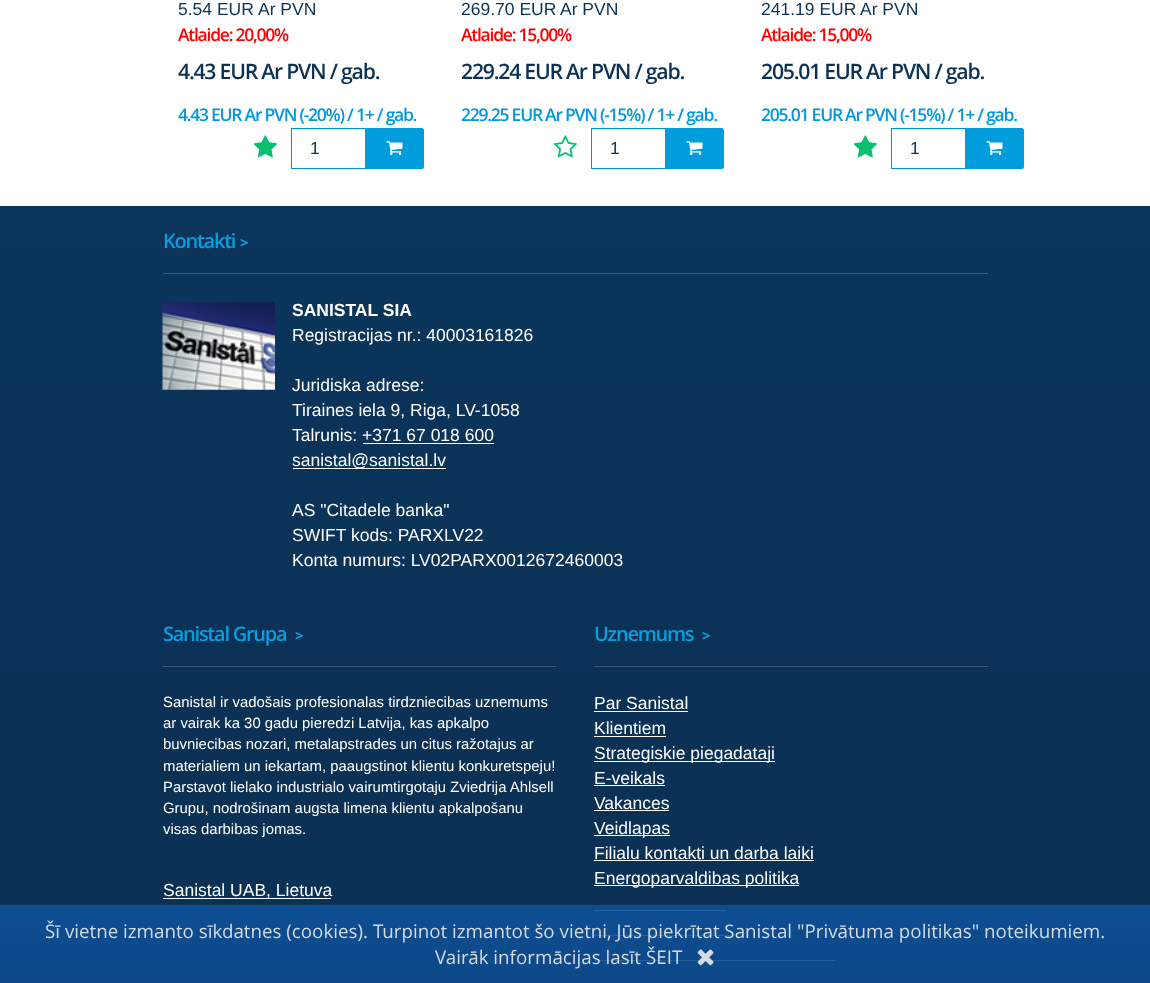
<!DOCTYPE html>
<meta charset="utf-8">
<style>body { margin: 0 } canvas { display: block }</style>
<canvas id="canvas" width="1150" height="983"></canvas>
<script type="module">
  const canvas = document.getElementById("canvas");
  const g = canvas.getContext("2d");
  g.miterLimit = 4;
  g.fontKerning = "normal";
  function drawText(s, x, y, [font, color]) {
    g.font = font;
    g.fillStyle = color;
    g.fillText(s, x, y);
  }
  function fillBox(x, y, w, h, color) {
    g.fillStyle = color;
    g.fillRect(x, y, w, h);
  }
  async function drawPicture(src, x, y, w, h) {
    const img = new Image();
    img.src = src;
    await img.decode();
    g.drawImage(img, x, y, w, h);
  }
  let gradient;

  const s1 = ["17.5px Liberation Sans", "#0B3255"];
  const s2 = ["600 17.5px Open Sans", "#FF0000"];
  const s3 = ["600 21.25px Open Sans", "#0B3255"];
  const s4 = ["600 17.5px Open Sans", "#0098DE"];
  const s5 = ["600 20px Open Sans", "#079FDE"];
  const s6 = ["bold 15px Open Sans", "#079FDE"];
  const s7 = ["bold 17.5px Liberation Sans", "#FFFFFF"];
  const s8 = ["17.5px Liberation Sans", "#FFFFFF"];
  const s9 = ["14.9px Liberation Sans", "#FFFFFF"];
  const s10 = ["18.75px Open Sans", "#D5DBE3"];

  fillBox(0, 0, 1150, 983, "#FFFFFF");
  drawText("5.54 EUR", 178, 15, s1);
  drawText("Ar PVN", 258, 15, s1);
  g.letterSpacing = "-1.25px";
  drawText("Atlaide: 20,00%", 178, 41, s2);
  drawText("4.43 EUR Ar PVN / gab.", 178, 79, s3);
  drawText("4.43 EUR Ar PVN (-20%) / 1+ / gab.", 178, 121, s4);
  await drawPicture("pic1.png", 253, 135, 24, 23);
  fillBox(293, 129, 72, 1, "#ECECEC");
  g.strokeStyle = "#0093CE";
  g.strokeRect(291.5, 128.5, 74, 40);
  g.letterSpacing = "0px";
  drawText("1", 310, 154, s1);
  g.fillStyle = "#009DDD";
  g.beginPath();
  g.roundRect(365, 128, 59, 41, [0, 2.5, 2.5, 0]);
  g.fill();
  await drawPicture("pic2.png", 386, 141, 17, 14);
  drawText("269.70 EUR", 461, 15, s1);
  drawText("Ar PVN", 560, 15, s1);
  g.letterSpacing = "-1.25px";
  drawText("Atlaide: 15,00%", 461, 41, s2);
  drawText("229.24 EUR Ar PVN / gab.", 461, 79, s3);
  drawText("229.25 EUR Ar PVN (-15%) / 1+ / gab.", 461, 121, s4);
  await drawPicture("pic3.png", 553, 135, 24, 23);
  fillBox(593, 129, 72, 1, "#ECECEC");
  g.strokeRect(591.5, 128.5, 74, 40);
  g.letterSpacing = "0px";
  drawText("1", 610, 154, s1);
  g.fillStyle = "#009DDD";
  g.beginPath();
  g.roundRect(665, 128, 59, 41, [0, 2.5, 2.5, 0]);
  g.fill();
  await drawPicture("pic2.png", 686, 141, 17, 14);
  drawText("241.19 EUR", 761, 15, s1);
  drawText("Ar PVN", 860, 15, s1);
  g.letterSpacing = "-1.25px";
  drawText("Atlaide: 15,00%", 761, 41, s2);
  drawText("205.01 EUR Ar PVN / gab.", 761, 79, s3);
  drawText("205.01 EUR Ar PVN (-15%) / 1+ / gab.", 761, 121, s4);
  await drawPicture("pic1.png", 853, 135, 24, 23);
  fillBox(893, 129, 72, 1, "#ECECEC");
  g.strokeRect(891.5, 128.5, 74, 40);
  g.letterSpacing = "0px";
  drawText("1", 910, 154, s1);
  g.fillStyle = "#009DDD";
  g.beginPath();
  g.roundRect(965, 128, 59, 41, [0, 2.5, 2.5, 0]);
  g.fill();
  await drawPicture("pic2.png", 986, 141, 17, 14);
  gradient = g.createLinearGradient(575, 206, 575, 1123);
  gradient.addColorStop(0, "#0C355C");
  gradient.addColorStop(1, "#0A2F50");
  g.fillStyle = gradient;
  g.fillRect(0, 206, 1150, 777);
  fillBox(163, 273, 825, 1, "#3D5D7C");
  g.letterSpacing = "-1.25px";
  drawText("Kontakti", 163, 248, s5);
  drawText(">", 240, 248, s6);
  await drawPicture("pic4.png", 162, 302, 113, 88);
  g.letterSpacing = "0px";
  drawText("SANISTAL SIA", 292, 316, s7);
  drawText("Registracijas nr.: 40003161826", 292, 341, s8);
  drawText("Juridiska adrese:", 292, 391, s8);
  drawText("Tiraines iela 9, Riga, LV-1058", 292, 416, s8);
  drawText("Talrunis: +371 67 018 600", 292, 441, s8);
  fillBox(363, 443, 131, 1, "#FFFFFF");
  fillBox(293, 468, 153, 1, "#FFFFFF");
  drawText("sanistal@sanistal.lv", 292, 466, s8);
  drawText("AS \"Citadele banka\"", 292, 516, s8);
  drawText("SWIFT kods: PARXLV22", 292, 541, s8);
  drawText("Konta numurs: LV02PARX0012672460003", 292, 566, s8);
  fillBox(163, 666, 393, 1, "#3C5B78");
  g.letterSpacing = "-1.25px";
  drawText("Sanistal Grupa", 163, 641, s5);
  drawText(">", 295, 641, s6);
  g.letterSpacing = "0px";
  drawText("Sanistal ir vadošais profesionalas tirdzniecibas uznemums", 163, 707, s9);
  drawText("ar vairak ka 30 gadu pieredzi Latvija, kas apkalpo", 163, 728, s9);
  drawText("buvniecibas nozari, metalapstrades un citus ražotajus ar", 163, 749, s9);
  drawText("materialiem un iekartam, paaugstinot klientu konkuretspeju!", 163, 771, s9);
  drawText("Parstavot lielako industrialo vairumtirgotaju Zviedrija Ahlsell", 163, 792, s9);
  drawText("Grupu, nodrošinam augsta limena klientu apkalpošanu", 163, 813, s9);
  drawText("visas darbibas jomas.", 163, 834, s9);
  fillBox(163, 898, 168, 1, "#FFFFFF");
  drawText("Sanistal UAB, Lietuva", 163, 896, s8);
  fillBox(594, 666, 394, 1, "#3C5B78");
  g.letterSpacing = "-1.25px";
  drawText("Uznemums", 594, 641, s5);
  drawText(">", 702, 641, s6);
  g.letterSpacing = "0px";
  drawText("Par Sanistal", 594, 709, s8);
  fillBox(594, 711, 94, 1, "#FFFFFF");
  drawText("Klientiem", 594, 734, s8);
  fillBox(594, 736, 72, 1, "#FFFFFF");
  fillBox(594, 761, 181, 1, "#FFFFFF");
  drawText("Strategiskie piegadataji", 594, 759, s8);
  drawText("E-veikals", 594, 784, s8);
  fillBox(594, 785, 71, 1, "#FFFFFF");
  drawText("Vakances", 594, 809, s8);
  fillBox(594, 810, 75, 1, "#FFFFFF");
  fillBox(594, 835, 76, 1, "#FFFFFF");
  drawText("Veidlapas", 594, 834, s8);
  drawText("Filialu kontakti un darba laiki", 594, 859, s8);
  fillBox(594, 860, 220, 1, "#FFFFFF");
  fillBox(594, 885, 205, 1, "#FFFFFF");
  drawText("Energoparvaldibas politika", 594, 884, s8);
  fillBox(594, 910, 132, 1, "#FFFFFF");
  fillBox(594, 935, 139, 1, "#FFFFFF");
  fillBox(594, 960, 241, 1, "#FFFFFF");
  gradient = g.createLinearGradient(575, 905, 575, 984);
  gradient.addColorStop(0, "rgba(14, 81, 154, 0.9)");
  gradient.addColorStop(1, "rgba(13, 75, 142, 0.9)");
  g.fillStyle = gradient;
  g.fillRect(0, 905, 1150, 78);
  drawText("Šī vietne izmanto sīkdatnes (cookies). Turpinot izmantot šo vietni, Jūs piekrītat Sanistal \"Privātuma politikas\" noteikumiem.", 45, 938, s10);
  drawText("Vairāk informācijas lasīt", 435, 964, s10);
  drawText("ŠEIT", 646, 964, s10);
  await drawPicture("pic5.png", 697, 949, 17, 17);
</script>
